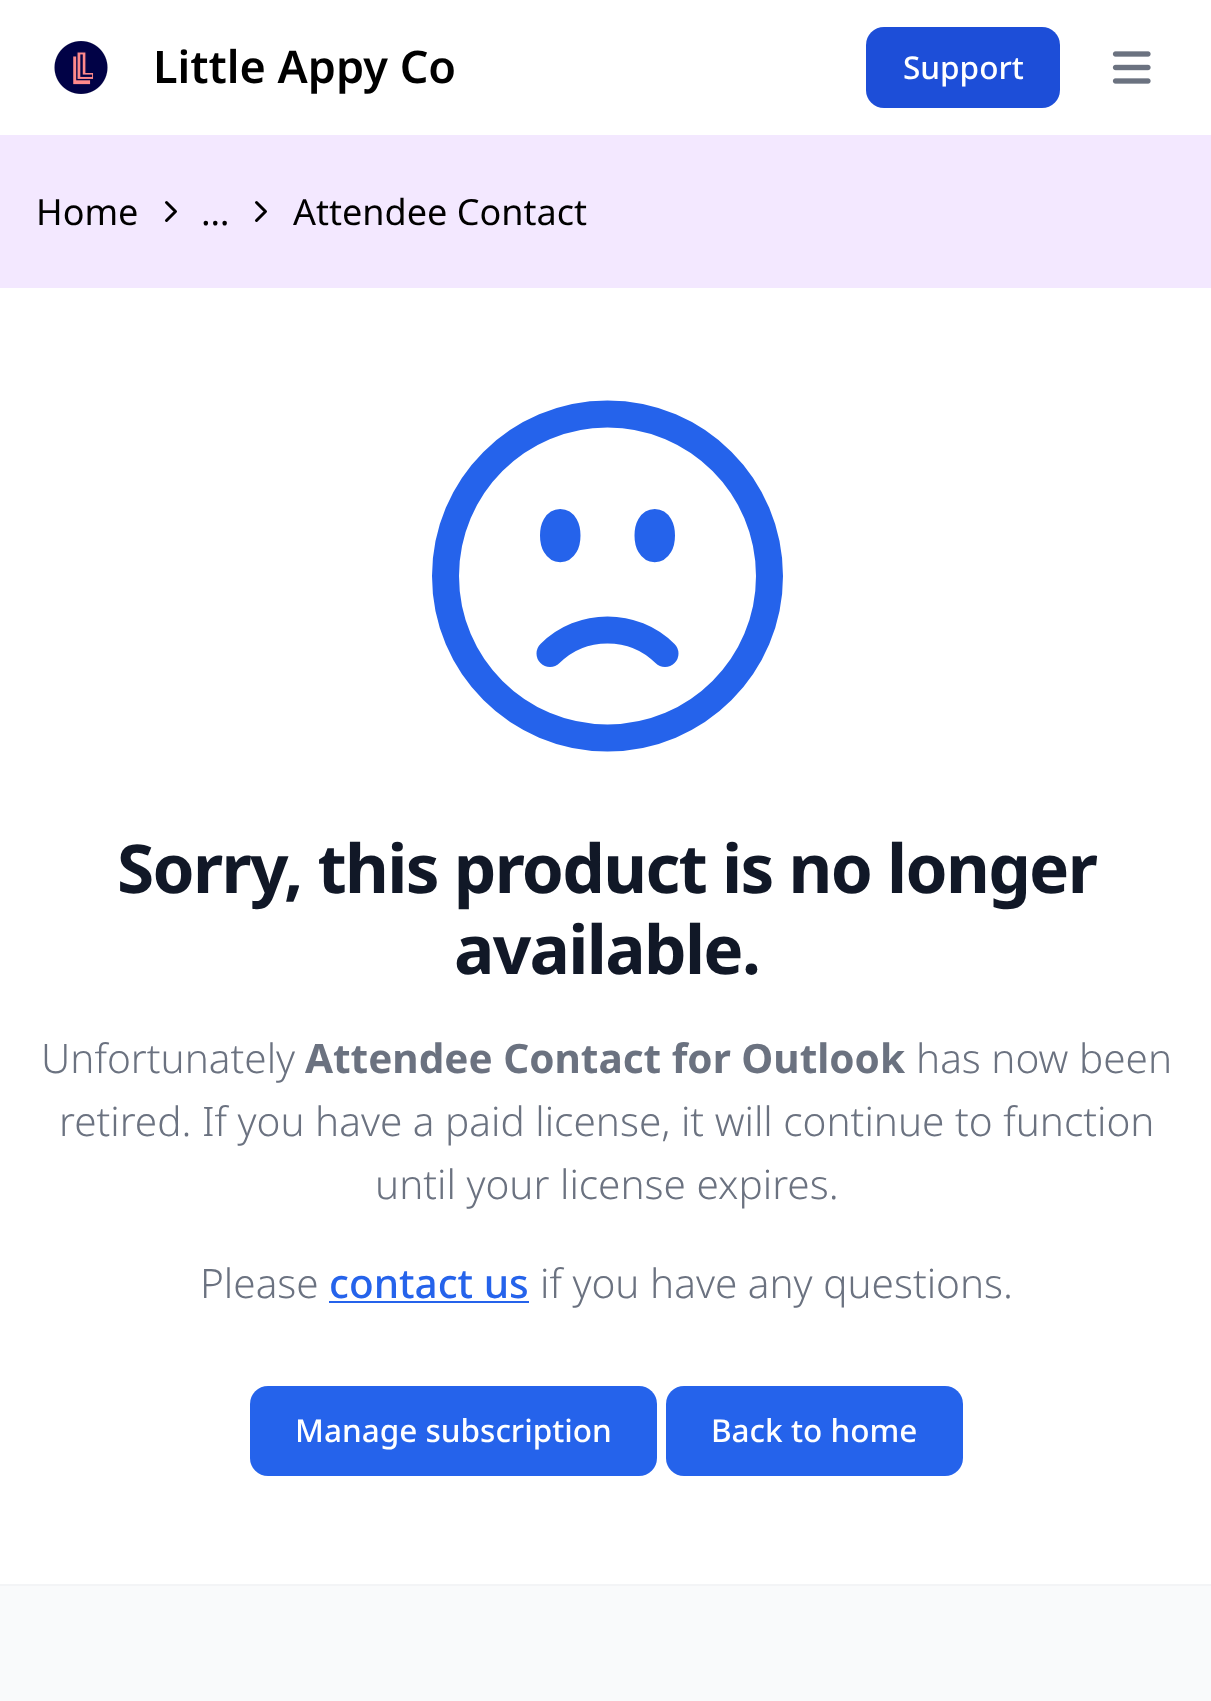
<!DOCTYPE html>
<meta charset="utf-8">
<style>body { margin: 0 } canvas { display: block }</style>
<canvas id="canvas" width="1211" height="1701"></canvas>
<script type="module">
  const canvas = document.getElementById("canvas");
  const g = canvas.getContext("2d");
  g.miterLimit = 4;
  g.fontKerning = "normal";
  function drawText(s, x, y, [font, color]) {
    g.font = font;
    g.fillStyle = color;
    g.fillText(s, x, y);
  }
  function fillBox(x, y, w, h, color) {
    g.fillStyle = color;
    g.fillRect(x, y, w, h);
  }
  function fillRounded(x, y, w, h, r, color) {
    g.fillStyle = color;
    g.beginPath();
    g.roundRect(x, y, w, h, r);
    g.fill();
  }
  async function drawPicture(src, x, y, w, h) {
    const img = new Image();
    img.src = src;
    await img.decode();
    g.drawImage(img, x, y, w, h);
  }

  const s1 = ["600 45px Noto Sans", "#000000"];
  const s2 = ["500 31.5px Noto Sans", "#FFFFFF"];
  const s3 = ["36px Noto Sans", "#000000"];
  const s4 = ["bold 67.5px Noto Sans", "#111827"];
  const s5 = ["300 40.5px Noto Sans", "#6B7280"];
  const s6 = ["bold 40.5px Noto Sans", "#6B7280"];
  const s7 = ["500 40.5px Noto Sans", "#2563EB"];

  fillBox(0, 0, 1211, 1701, "#FFFFFF");
  await drawPicture("pic1.png", 54, 41, 54, 53);
  drawText("Little Appy Co", 153, 83, s1);
  fillRounded(866, 27, 194, 81, 18, "#1D4ED8");
  drawText("Support", 903, 79, s2);
  await drawPicture("pic2.png", 1112, 51, 39, 33);
  fillBox(0, 135, 1211, 153, "#F3E8FF");
  drawText("Home", 36, 225, s3);
  g.beginPath();
  g.moveTo(166.5, 220.5);
  g.lineTo(175.5, 211.5);
  g.lineTo(166.5, 202.5);
  g.strokeStyle = "#000000";
  g.lineWidth = 3;
  g.lineCap = "round";
  g.lineJoin = "round";
  g.stroke();
  g.beginPath();
  g.moveTo(256.5, 220.5);
  g.lineTo(265.5, 211.5);
  g.lineTo(256.5, 202.5);
  g.stroke();
  drawText("…", 201, 225, s3);
  drawText("Attendee Contact", 293, 225, s3);
  g.beginPath();
  g.moveTo(665, 653.5);
  g.bezierCurveTo(633.5, 622, 581.5, 622, 550, 653.5);
  g.moveTo(769.5, 576);
  g.bezierCurveTo(769.5, 665.5, 697, 738, 607.5, 738);
  g.bezierCurveTo(518, 738, 445.5, 665.5, 445.5, 576);
  g.bezierCurveTo(445.5, 486.5, 518, 414, 607.5, 414);
  g.bezierCurveTo(697, 414, 769.5, 486.5, 769.5, 576);
  g.closePath();
  g.moveTo(567, 535.5);
  g.bezierCurveTo(567, 553, 553.5, 553, 553.5, 535.5);
  g.bezierCurveTo(553.5, 518, 567, 518, 567, 535.5);
  g.closePath();
  g.moveTo(560, 535.5);
  g.lineTo(560, 535.5);
  g.closePath();
  g.moveTo(661.5, 535.5);
  g.bezierCurveTo(661.5, 553, 648, 553, 648, 535.5);
  g.bezierCurveTo(648, 518, 661.5, 518, 661.5, 535.5);
  g.closePath();
  g.moveTo(655, 535.5);
  g.lineTo(655, 535.5);
  g.closePath();
  g.strokeStyle = "#2563EB";
  g.lineWidth = 27;
  g.stroke();
  g.letterSpacing = "-1.7px";
  drawText("Sorry, this product is no longer", 117, 893, s4);
  drawText("available.", 454, 974, s4);
  g.letterSpacing = "0px";
  drawText("Unfortunately", 41, 1073, s5);
  drawText("Attendee Contact for Outlook", 305, 1073, s6);
  drawText("has now been", 916, 1073, s5);
  drawText("retired. If you have a paid license, it will continue to function", 59, 1136, s5);
  drawText("until your license expires.", 375, 1199, s5);
  drawText("Please", 200, 1298, s5);
  drawText("contact us", 329, 1298, s7);
  fillBox(329, 1301, 200, 2, "#2563EB");
  drawText("if you have any questions.", 540, 1298, s5);
  fillRounded(250, 1386, 407, 90, 18, "#2563EB");
  drawText("Manage subscription", 295, 1442, s2);
  fillRounded(666, 1386, 297, 90, 18, "#2563EB");
  drawText("Back to home", 711, 1442, s2);
  fillBox(0, 1586, 1211, 115, "#F9FAFB");
  fillBox(0, 1584, 1211, 2, "#F3F4F6");
</script>
